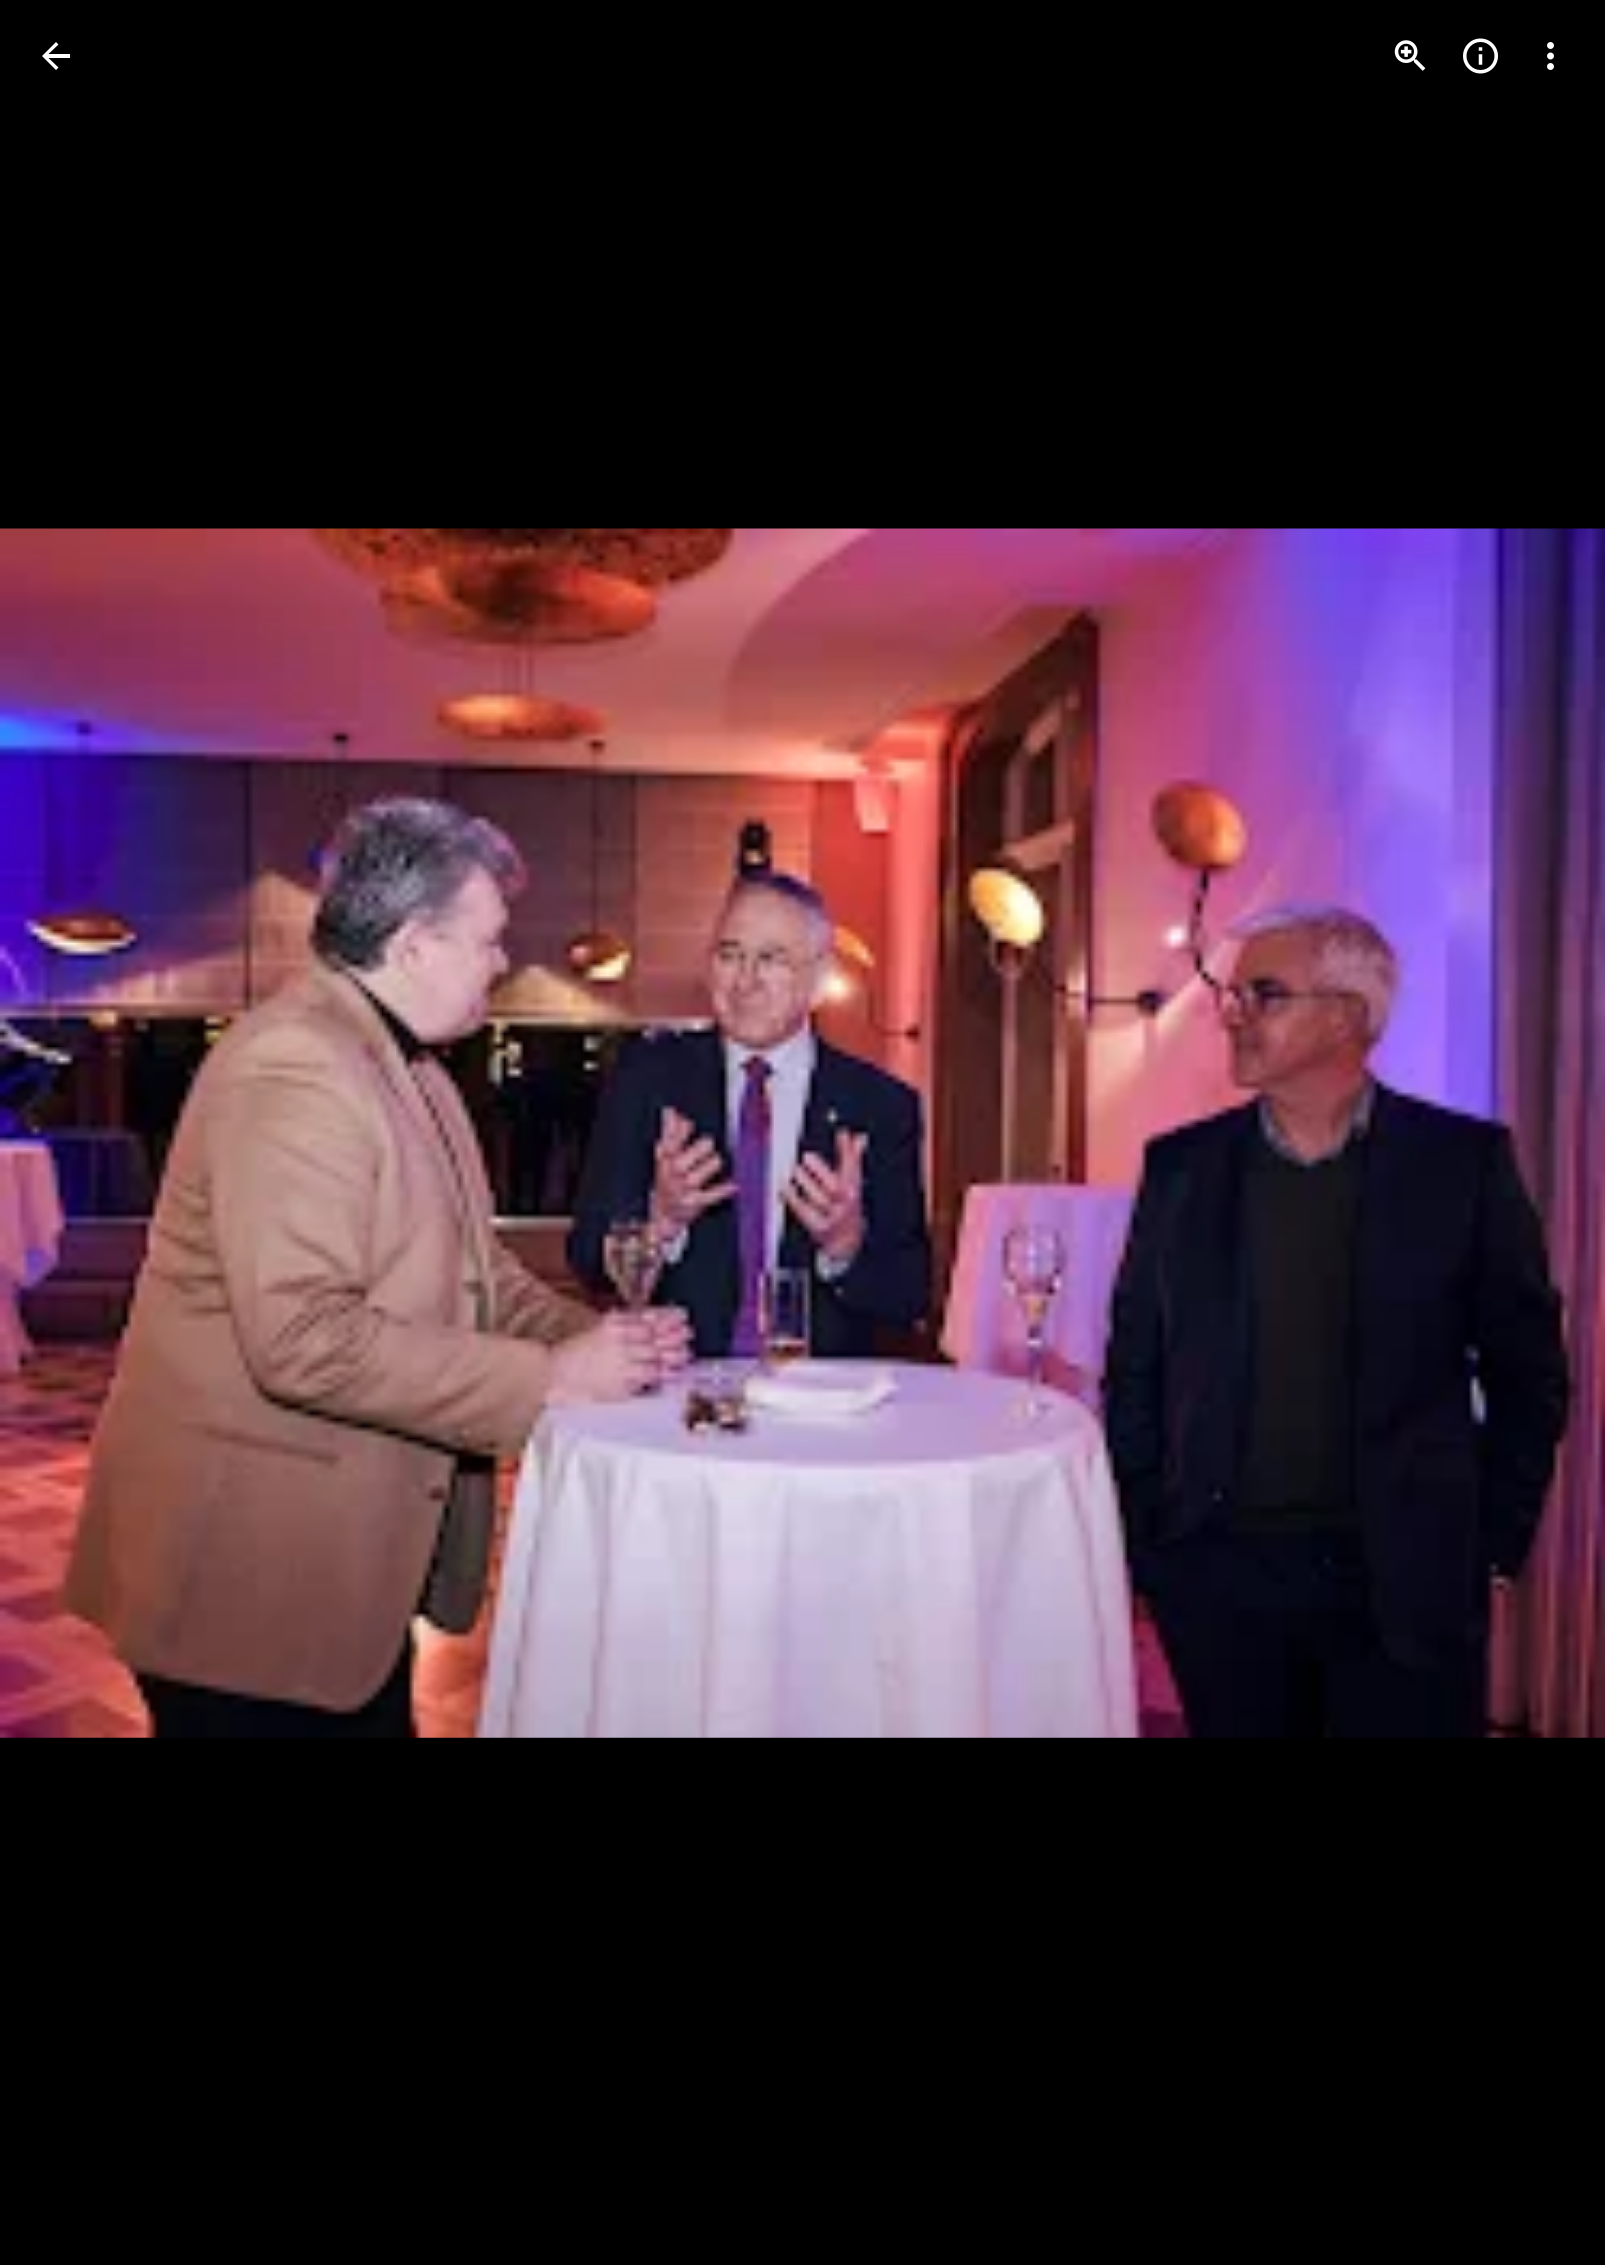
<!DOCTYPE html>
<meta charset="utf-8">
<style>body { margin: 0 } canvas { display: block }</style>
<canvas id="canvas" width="1605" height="2265"></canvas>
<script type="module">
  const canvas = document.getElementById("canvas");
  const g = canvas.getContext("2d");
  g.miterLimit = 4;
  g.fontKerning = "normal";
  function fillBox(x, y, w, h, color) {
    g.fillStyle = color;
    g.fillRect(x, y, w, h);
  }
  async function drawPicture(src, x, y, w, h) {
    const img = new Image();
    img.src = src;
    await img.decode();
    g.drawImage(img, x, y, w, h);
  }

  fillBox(0, 0, 1605, 2265, "#000000");
  g.fillStyle = "#FFFFFF";
  g.beginPath();
  g.moveTo(70, 54);
  g.lineTo(48.5, 54);
  g.lineTo(58.5, 44.5);
  g.lineTo(56, 42);
  g.lineTo(42, 56);
  g.lineTo(56, 70);
  g.lineTo(58.5, 67.5);
  g.lineTo(48.5, 58);
  g.lineTo(70, 58);
  g.closePath();
  g.fill();
  await drawPicture("pic1.png", 1394, 40, 32, 31);
  await drawPicture("pic2.png", 1463, 38, 35, 36);
  await drawPicture("pic3.png", 1547, 42, 7, 28);
  await drawPicture("pic4.png", 0, 528, 1605, 1210);
</script>
